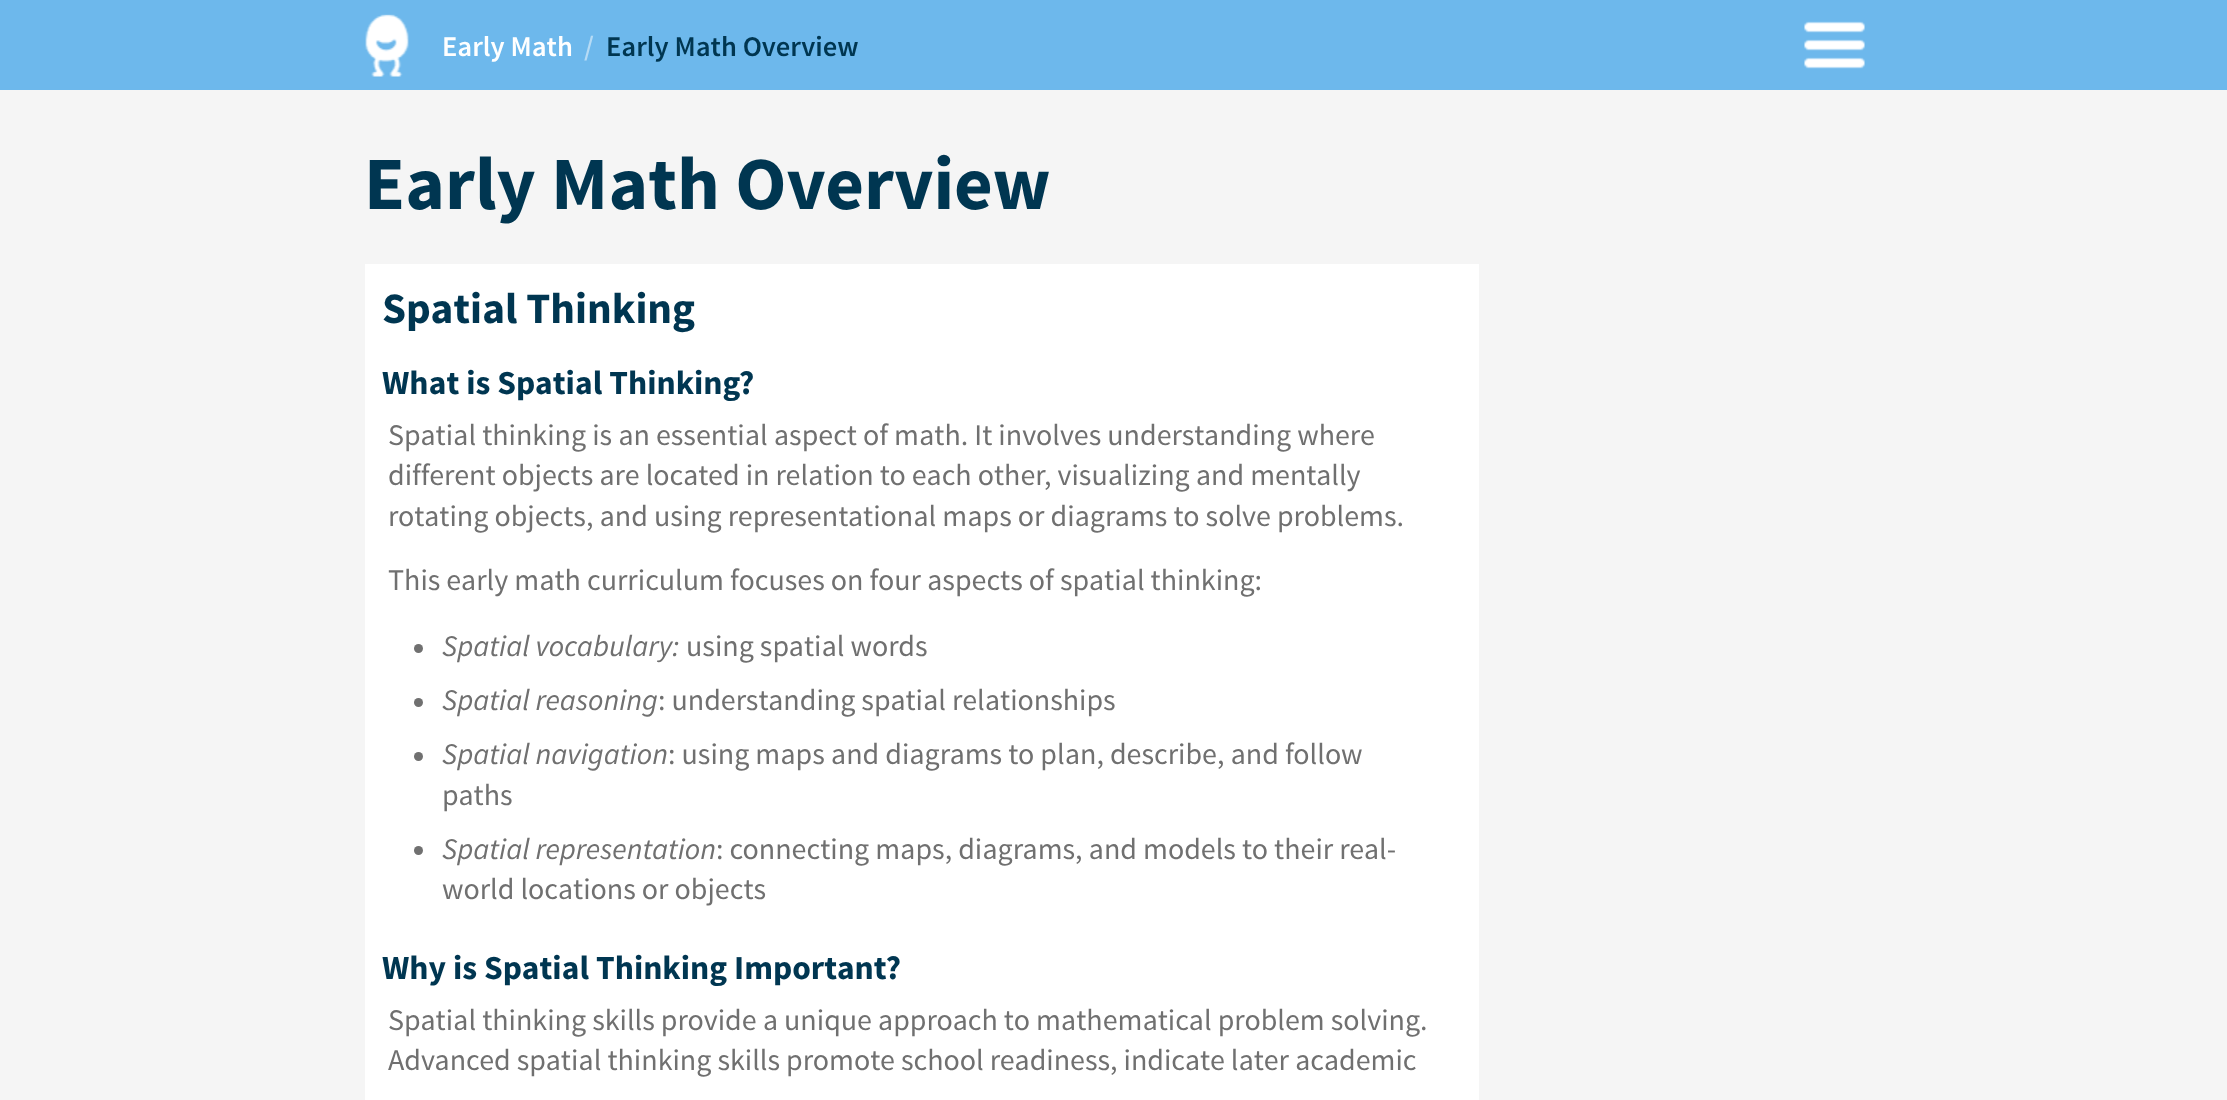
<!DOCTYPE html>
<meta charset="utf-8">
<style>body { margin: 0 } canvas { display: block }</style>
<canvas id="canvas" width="2227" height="1100"></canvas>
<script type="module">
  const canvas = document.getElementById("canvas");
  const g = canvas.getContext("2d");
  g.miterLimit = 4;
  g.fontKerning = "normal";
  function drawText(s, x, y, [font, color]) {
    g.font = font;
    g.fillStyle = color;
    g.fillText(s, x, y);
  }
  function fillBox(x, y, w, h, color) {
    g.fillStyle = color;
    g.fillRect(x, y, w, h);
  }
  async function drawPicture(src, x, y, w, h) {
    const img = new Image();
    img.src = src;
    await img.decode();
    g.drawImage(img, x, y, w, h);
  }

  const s1 = ["600 28.5px Source Sans Pro", "#FFFFFF"];
  const s2 = ["600 28.5px Source Sans Pro", "#B6DBF5"];
  const s3 = ["600 28.5px Source Sans Pro", "#003651"];
  const s4 = ["bold 75px Source Sans Pro", "#003651"];
  const s5 = ["bold 43.25px Source Sans Pro", "#003651"];
  const s6 = ["bold 33.6px Source Sans Pro", "#003651"];
  const s7 = ["30px Source Sans Pro", "#707070"];
  const s8 = ["italic 30px Source Sans Pro", "#707070"];

  fillBox(0, 0, 2227, 1100, "#F5F5F5");
  fillBox(0, 0, 2227, 90, "#6DB8EC");
  await drawPicture("pic1.png", 365, 14, 44, 63);
  drawText("Early Math", 442, 56, s1);
  drawText("/", 584, 56, s2);
  drawText("Early Math Overview", 606, 56, s3);
  await drawPicture("pic2.png", 1804, 21, 61, 48);
  drawText("Early Math Overview", 364, 209, s4);
  fillBox(365, 264, 1114, 836, "#FFFFFF");
  drawText("Spatial Thinking", 382, 323, s5);
  drawText("What is Spatial Thinking?", 382, 394, s6);
  drawText("Spatial thinking is an essential aspect of math. It involves understanding where", 388, 445, s7);
  drawText("different objects are located in relation to each other, visualizing and mentally", 388, 485, s7);
  drawText("rotating objects, and using representational maps or diagrams to solve problems.", 388, 526, s7);
  drawText("This early math curriculum focuses on four aspects of spatial thinking:", 388, 590, s7);
  g.beginPath();
  g.arc(418.5, 648.5, 4.5, 0, Math.PI * 2);
  g.fill();
  drawText("Spatial vocabulary:", 442, 656, s8);
  drawText("using spatial words", 686, 656, s7);
  g.beginPath();
  g.arc(418.5, 702.5, 4.5, 0, Math.PI * 2);
  g.fill();
  drawText("Spatial reasoning", 442, 710, s8);
  drawText(": understanding spatial relationships", 658, 710, s7);
  g.beginPath();
  g.arc(418.5, 756.5, 4.5, 0, Math.PI * 2);
  g.fill();
  drawText("Spatial navigation", 442, 764, s8);
  drawText(": using maps and diagrams to plan, describe, and follow", 668, 764, s7);
  drawText("paths", 442, 805, s7);
  g.beginPath();
  g.arc(418.5, 850.5, 4.5, 0, Math.PI * 2);
  g.fill();
  drawText("Spatial representation", 442, 859, s8);
  drawText(": connecting maps, diagrams, and models to their real-", 716, 859, s7);
  drawText("world locations or objects", 442, 899, s7);
  drawText("Why is Spatial Thinking Important?", 382, 979, s6);
  drawText("Spatial thinking skills provide a unique approach to mathematical problem solving.", 388, 1030, s7);
  drawText("Advanced spatial thinking skills promote school readiness, indicate later academic", 388, 1070, s7);
</script>
